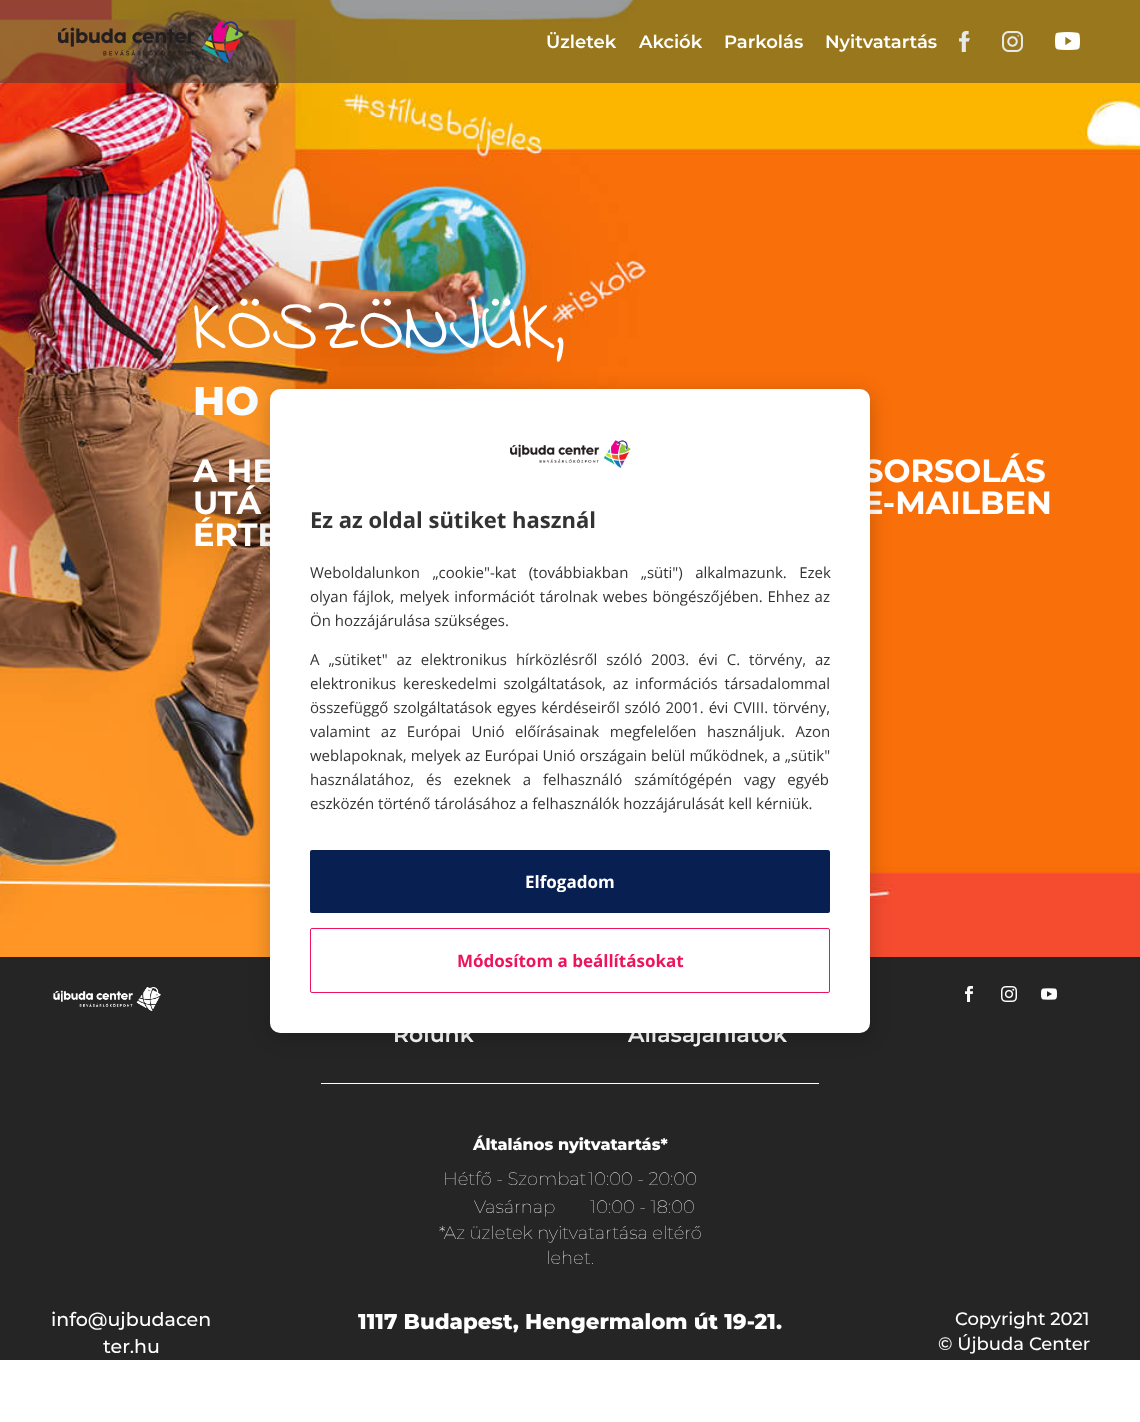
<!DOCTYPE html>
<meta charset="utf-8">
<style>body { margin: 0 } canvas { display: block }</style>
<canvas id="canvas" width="1140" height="1422"></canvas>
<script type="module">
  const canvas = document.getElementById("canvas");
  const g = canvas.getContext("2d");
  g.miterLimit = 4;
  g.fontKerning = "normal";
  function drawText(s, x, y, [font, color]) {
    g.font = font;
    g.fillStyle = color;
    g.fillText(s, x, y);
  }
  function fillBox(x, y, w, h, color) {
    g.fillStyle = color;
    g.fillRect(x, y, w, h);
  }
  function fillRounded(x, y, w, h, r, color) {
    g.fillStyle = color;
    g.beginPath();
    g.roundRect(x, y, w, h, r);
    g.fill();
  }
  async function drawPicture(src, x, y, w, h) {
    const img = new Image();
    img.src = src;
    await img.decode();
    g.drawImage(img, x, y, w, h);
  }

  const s1 = ["100 18px 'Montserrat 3'", "#FFFFFF"];
  const s2 = ["73px Indie Flower", "#FFFFFF"];
  const s3 = ["100 40px Montserrat", "#F7FCFF"];
  const s4 = ["100 32px 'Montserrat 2'", "#FFFFFF"];
  const s5 = ["100 22px 'Montserrat 3'", "#FFFFFF"];
  const s6 = ["100 16px Montserrat", "#FFFFFF"];
  const s7 = ["100 18px 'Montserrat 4'", "#FFFFFF"];
  const s8 = ["100 19px 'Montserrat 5'", "#FFFFFF"];
  const s9 = ["100 21.3px Montserrat", "#FFFFFF"];
  const s10 = ["100 18px 'Montserrat 5'", "#FFFFFF"];
  const s11 = ["bold 22px Open Sans", "#333333"];
  const s12 = ["15px Open Sans", "#333333"];
  const s13 = ["bold 17px Open Sans", "#FFFFFF"];
  const s14 = ["bold 17px Open Sans", "#ED145B"];

  fillBox(0, 0, 1140, 1422, "#FFFFFF");
  await drawPicture("pic5.png", 0, 0, 1140, 957);
  fillBox(0, 0, 1140, 83, "rgba(51, 55, 58, 0.5)");
  await drawPicture("pic1.png", 58, 21, 185, 42);
  drawText("Üzletek", 546, 48, s1);
  drawText("Akciók", 639, 48, s1);
  drawText("Parkolás", 724, 48, s1);
  drawText("Nyitvatartás", 825, 48, s1);
  await drawPicture("pic2.png", 959, 31, 11, 21);
  await drawPicture("pic3.png", 1002, 31, 21, 21);
  await drawPicture("pic4.png", 1055, 32, 25, 18);
  drawText("KÖSZÖNJÜK,", 193, 348, s2);
  drawText("HO", 193, 415, s3);
  drawText("A HE", 193, 482, s4);
  drawText("SORSOLÁS", 863, 482, s4);
  drawText("UTÁ", 193, 514, s4);
  drawText("E-MAILBEN", 862, 514, s4);
  drawText("ÉRTE", 193, 546, s4);
  fillBox(0, 957, 1140, 403, "#252525");
  await drawPicture("pic6.png", 53, 987, 108, 24);
  await drawPicture("pic7.png", 965, 986, 8, 16);
  await drawPicture("pic8.png", 1001, 986, 16, 16);
  await drawPicture("pic9.png", 1041, 988, 16, 12);
  drawText("Rólunk", 393, 1042, s5);
  drawText("Állásajánlatok", 628, 1042, s5);
  fillBox(321, 1083, 498, 1, "#FFFFFF");
  drawText("Általános nyitvatartás*", 473, 1150, s6);
  drawText("Hétfő - Szombat", 443, 1185, s7);
  drawText("10:00 - 20:00", 588, 1185, s7);
  drawText("Vasárnap", 474, 1213, s7);
  drawText("10:00 - 18:00", 590, 1213, s7);
  drawText("*Az üzletek nyitvatartása eltérő", 439, 1239, s7);
  drawText("lehet.", 546, 1264, s7);
  drawText("info@ujbudacen", 51, 1326, s8);
  drawText("ter.hu", 103, 1353, s8);
  drawText("1117 Budapest, Hengermalom út 19-21.", 358, 1329, s9);
  drawText("Copyright 2021", 955, 1325, s10);
  drawText("© Újbuda Center", 938, 1350, s10);
  g.fillStyle = "rgba(0, 0, 0, 0.2)";
  g.filter = "blur(10px)";
  g.beginPath();
  g.roundRect(270, 393, 600, 644, 10);
  g.fill();
  g.filter = "none";
  fillRounded(270, 389, 600, 644, 10, "#FFFFFF");
  await drawPicture("pic10.png", 510, 440, 121, 28);
  drawText("Ez az oldal sütiket használ", 310, 528, s11);
  g.wordSpacing = "8.5px";
  drawText("Weboldalunkon „cookie\"-kat (továbbiakban „süti\") alkalmazunk. Ezek", 310, 578, s12);
  g.wordSpacing = "1px";
  drawText("olyan fájlok, melyek információt tárolnak webes böngészőjében. Ehhez az", 310, 602, s12);
  g.wordSpacing = "0px";
  drawText("Ön hozzájárulása szükséges.", 310, 626, s12);
  g.wordSpacing = "5px";
  drawText("A „sütiket\" az elektronikus hírközlésről szóló 2003. évi C. törvény, az", 310, 665, s12);
  g.wordSpacing = "3px";
  drawText("elektronikus kereskedelmi szolgáltatások, az információs társadalommal", 310, 689, s12);
  g.wordSpacing = "1px";
  drawText("összefüggő szolgáltatások egyes kérdéseiről szóló 2001. évi CVIII. törvény,", 310, 713, s12);
  g.wordSpacing = "6.75px";
  drawText("valamint az Európai Unió előírásainak megfelelően használjuk. Azon", 310, 737, s12);
  g.wordSpacing = "0.25px";
  drawText("weblapoknak, melyek az Európai Unió országain belül működnek, a „sütik\"", 310, 761, s12);
  g.wordSpacing = "8px";
  drawText("használatához, és ezeknek a felhasználó számítógépén vagy egyéb", 310, 785, s12);
  g.wordSpacing = "0px";
  drawText("eszközén történő tárolásához a felhasználók hozzájárulását kell kérniük.", 310, 809, s12);
  fillRounded(310, 850, 520, 63, 2, "#082051");
  drawText("Elfogadom", 525, 888, s13);
  g.beginPath();
  g.roundRect(310.5, 928.5, 519, 64, 1.5);
  g.strokeStyle = "#ED145B";
  g.stroke();
  drawText("Módosítom a beállításokat", 457, 967, s14);
</script>
